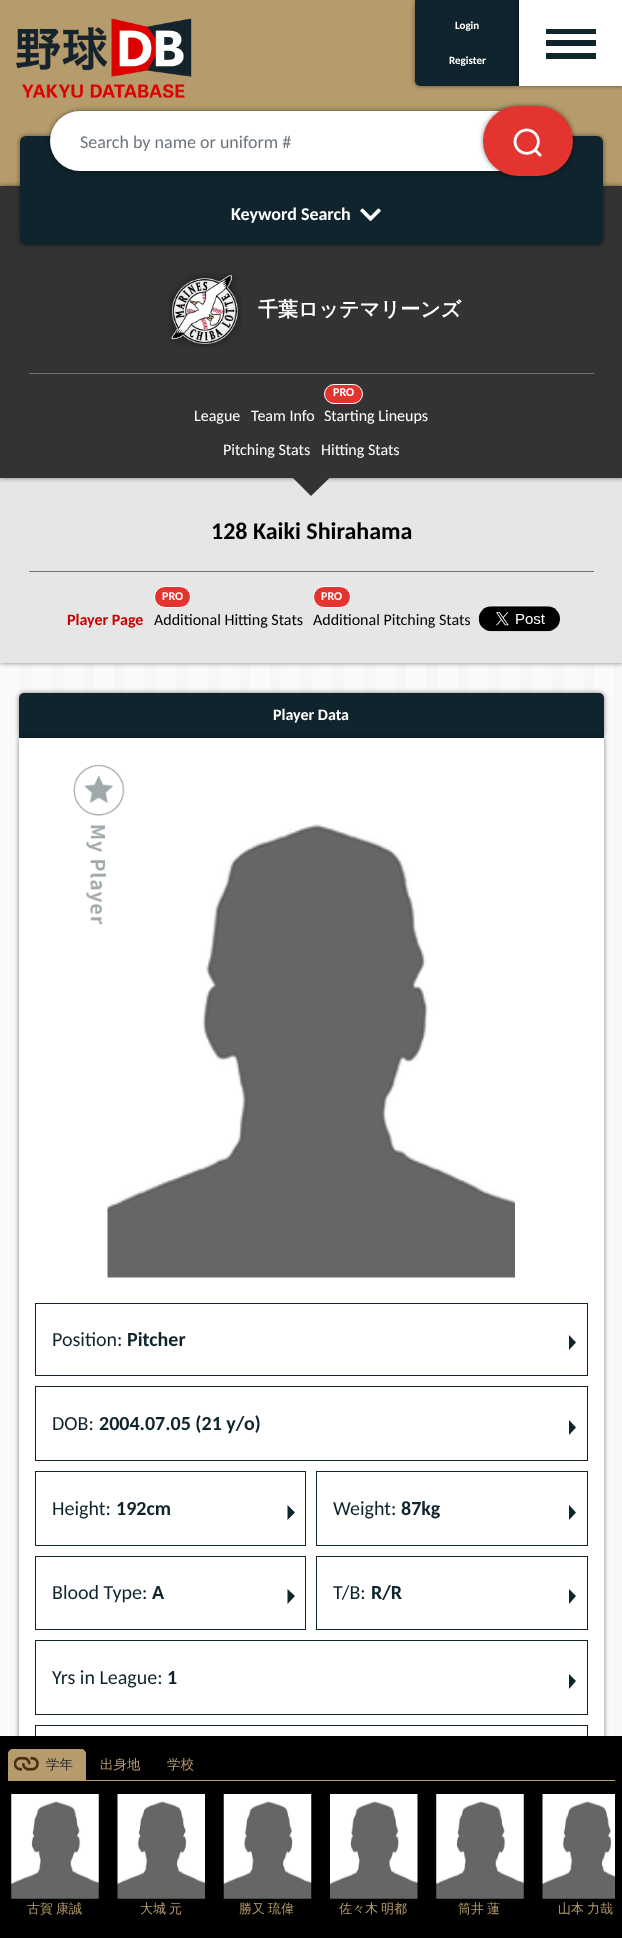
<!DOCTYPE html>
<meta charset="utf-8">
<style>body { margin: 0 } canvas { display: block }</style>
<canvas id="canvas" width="622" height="1938"></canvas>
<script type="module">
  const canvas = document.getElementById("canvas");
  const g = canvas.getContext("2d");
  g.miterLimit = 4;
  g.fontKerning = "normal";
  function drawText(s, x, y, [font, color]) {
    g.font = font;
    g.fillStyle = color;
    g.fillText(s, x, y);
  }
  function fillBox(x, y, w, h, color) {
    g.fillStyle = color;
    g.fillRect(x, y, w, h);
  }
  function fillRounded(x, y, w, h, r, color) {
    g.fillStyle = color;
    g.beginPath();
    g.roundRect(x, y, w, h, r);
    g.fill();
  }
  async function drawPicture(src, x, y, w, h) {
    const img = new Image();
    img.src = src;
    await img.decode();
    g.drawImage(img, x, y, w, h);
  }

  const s1 = ["bold 11px Carlito", "#FFFFFF"];
  const s2 = ["18px Carlito", "#6C757D"];
  const s3 = ["bold 18px Carlito", "#FFFFFF"];
  const s4 = ["bold 20px WenQuanYi Zen Hei", "#FFFFFF"];
  const s5 = ["16px Carlito", "#FFFFFF"];
  const s6 = ["bold 12px Carlito", "#FFFFFF"];
  const s7 = ["bold 24px Carlito", "#000000"];
  const s8 = ["bold 16px Carlito", "#CC0000"];
  const s9 = ["16px Carlito", "#000000"];
  const s10 = ["bold 16px Carlito", "#FFFFFF"];
  const s11 = ["20px Carlito", "#0F242D"];
  const s12 = ["bold 20px Carlito", "#0F242D"];
  const s13 = ["500 13.5px WenQuanYi Zen Hei", "#26292C"];
  const s14 = ["500 13.5px WenQuanYi Zen Hei", "#B69C6C"];
  const s15 = ["500 13px WenQuanYi Zen Hei", "#B69C6C"];

  fillBox(0, 0, 622, 1938, "#F7F7F7");
  fillBox(0, 663, 20, 1073, "#FAFAFA");
  fillBox(31, 663, 20, 30, "#FAFAFA");
  fillBox(63, 663, 20, 30, "#FAFAFA");
  fillBox(94, 663, 20, 30, "#FAFAFA");
  fillBox(125, 663, 20, 30, "#FAFAFA");
  fillBox(156, 663, 20, 30, "#FAFAFA");
  fillBox(188, 663, 20, 30, "#FAFAFA");
  fillBox(219, 663, 20, 30, "#FAFAFA");
  fillBox(250, 663, 20, 30, "#FAFAFA");
  fillBox(281, 663, 20, 30, "#FAFAFA");
  fillBox(313, 663, 20, 30, "#FAFAFA");
  fillBox(344, 663, 20, 30, "#FAFAFA");
  fillBox(375, 663, 20, 30, "#FAFAFA");
  fillBox(406, 663, 20, 30, "#FAFAFA");
  fillBox(438, 663, 20, 30, "#FAFAFA");
  fillBox(469, 663, 20, 30, "#FAFAFA");
  fillBox(500, 663, 20, 30, "#FAFAFA");
  fillBox(531, 663, 20, 30, "#FAFAFA");
  fillBox(563, 663, 20, 30, "#FAFAFA");
  fillBox(594, 663, 20, 1073, "#FAFAFA");
  fillBox(0, 0, 420, 86, "#B69C6C");
  fillBox(0, 86, 622, 100, "#B69C6C");
  await drawPicture("pic1.png", 16, 18, 176, 80);
  g.fillStyle = "rgba(0, 0, 0, 0.5)";
  g.filter = "blur(2.5px)";
  g.beginPath();
  g.roundRect(415, 0, 104, 86, 5);
  g.fill();
  g.filter = "none";
  g.fillStyle = "#0F242D";
  g.beginPath();
  g.roundRect(415, 0, 104, 86, [0, 0, 0, 5]);
  g.fill();
  drawText("Login", 455, 29, s1);
  drawText("Register", 449, 64, s1);
  g.fillStyle = "rgba(0, 0, 0, 0.5)";
  g.filter = "blur(2.5px)";
  g.beginPath();
  g.rect(519, 0, 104, 86);
  g.fill();
  g.filter = "none";
  fillBox(519, 0, 103, 86, "#FFFFFF");
  fillBox(546, 29, 50, 5, "#0F242D");
  fillBox(546, 40, 50, 6, "#0F242D");
  fillBox(546, 53, 50, 6, "#0F242D");
  g.fillStyle = "rgba(0, 0, 0, 0.5)";
  g.filter = "blur(2.5px)";
  g.beginPath();
  g.rect(0, 478, 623, 185);
  g.fill();
  g.filter = "none";
  fillBox(0, 478, 622, 185, "#E6E6E6");
  g.fillStyle = "rgba(0, 0, 0, 0.5)";
  g.filter = "blur(2.5px)";
  g.beginPath();
  g.rect(0, 186, 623, 292);
  g.fill();
  g.filter = "none";
  fillBox(0, 186, 622, 292, "#333333");
  g.fillStyle = "rgba(0, 0, 0, 0.5)";
  g.filter = "blur(2.5px)";
  g.beginPath();
  g.roundRect(20, 136, 583, 109, 6);
  g.fill();
  g.filter = "none";
  fillRounded(20, 136, 583, 109, 6, "#0F242D");
  g.fillStyle = "rgba(0, 0, 0, 0.5)";
  g.filter = "blur(2.5px)";
  g.beginPath();
  g.roundRect(50, 111, 494, 60, 30);
  g.fill();
  g.filter = "none";
  fillRounded(50, 111, 494, 60, 30, "#FFFFFF");
  drawText("Search by name or uniform #", 80, 148, s2);
  g.fillStyle = "rgba(0, 0, 0, 0.5)";
  g.filter = "blur(2.5px)";
  g.beginPath();
  g.roundRect(483, 106, 90, 70, 35);
  g.fill();
  g.filter = "none";
  fillRounded(483, 106, 90, 70, 35, "#E3342F");
  await drawPicture("pic2.png", 513, 128, 29, 29);
  drawText("Keyword Search", 231, 220, s3);
  await drawPicture("pic3.png", 360, 208, 21, 13);
  await drawPicture("pic4.png", 168, 273, 74, 75);
  drawText("千葉ロッテマリーンズ", 258, 316, s4);
  fillBox(29, 373, 565, 1, "#6C757D");
  drawText("League", 194, 421, s5);
  drawText("Team Info", 251, 421, s5);
  g.fillStyle = "#E3342F";
  g.beginPath();
  g.roundRect(324.5, 384.5, 38, 19, 9.5);
  g.fill();
  g.strokeStyle = "#FFFFFF";
  g.stroke();
  drawText("PRO", 333, 396, s6);
  drawText("Starting Lineups", 324, 421, s5);
  drawText("Pitching Stats", 223, 455, s5);
  drawText("Hitting Stats", 321, 455, s5);
  g.fillStyle = "#333333";
  g.beginPath();
  g.moveTo(292.5, 477.5);
  g.lineTo(330, 477.5);
  g.lineTo(311, 496);
  g.closePath();
  g.fill();
  drawText("128 Kaiki Shirahama", 211, 539, s7);
  fillBox(29, 571, 565, 1, "#6C757D");
  drawText("Player Page", 67, 625, s8);
  g.fillStyle = "#E3342F";
  g.beginPath();
  g.roundRect(154.5, 586.5, 36, 21, 10.5);
  g.fill();
  g.stroke();
  drawText("PRO", 162, 600, s6);
  drawText("Additional Hitting Stats", 154, 625, s9);
  g.fillStyle = "#E3342F";
  g.beginPath();
  g.roundRect(313.5, 586.5, 37, 21, 10.5);
  g.fill();
  g.stroke();
  drawText("PRO", 321, 600, s6);
  drawText("Additional Pitching Stats", 313, 625, s9);
  await drawPicture("pic5.png", 478, 606, 82, 26);
  g.fillStyle = "rgba(0, 0, 0, 0.5)";
  g.filter = "blur(2.5px)";
  g.beginPath();
  g.roundRect(19, 693, 585, 45, 5);
  g.fill();
  g.filter = "none";
  g.fillStyle = "#0F242D";
  g.beginPath();
  g.roundRect(19, 693, 585, 45, [5, 5, 0, 0]);
  g.fill();
  drawText("Player Data", 273, 720, s10);
  g.fillStyle = "rgba(0, 0, 0, 0.5)";
  g.filter = "blur(2.5px)";
  g.beginPath();
  g.rect(19, 738, 585, 1116);
  g.fill();
  g.filter = "none";
  fillBox(19, 738, 585, 998, "#FFFFFF");
  await drawPicture("pic7.png", 107, 824, 408, 454);
  await drawPicture("pic6.png", 73, 764, 52, 161);
  g.strokeStyle = "#0F242D";
  g.strokeRect(35.5, 1303.5, 552, 72);
  drawText("Position:", 52, 1346, s11);
  drawText("Pitcher", 127, 1346, s12);
  g.beginPath();
  g.moveTo(569, 1350);
  g.lineTo(569, 1335);
  g.lineTo(576, 1342.5);
  g.closePath();
  g.fill();
  g.strokeRect(35.5, 1386.5, 552, 74);
  drawText("DOB:", 52, 1430, s11);
  drawText("2004.07.05 (21 y/o)", 99, 1430, s12);
  g.beginPath();
  g.moveTo(569, 1435);
  g.lineTo(569, 1420);
  g.lineTo(576, 1427.5);
  g.closePath();
  g.fill();
  g.strokeRect(35.5, 1471.5, 270, 74);
  drawText("Height:", 52, 1515, s11);
  drawText("192cm", 116, 1515, s12);
  g.beginPath();
  g.moveTo(287.5, 1520);
  g.lineTo(287.5, 1505);
  g.lineTo(295, 1512.5);
  g.closePath();
  g.fill();
  g.strokeRect(316.5, 1471.5, 271, 74);
  drawText("Weight:", 333, 1515, s11);
  drawText("87kg", 401, 1515, s12);
  g.beginPath();
  g.moveTo(569, 1520);
  g.lineTo(569, 1505);
  g.lineTo(576, 1512.5);
  g.closePath();
  g.fill();
  g.strokeRect(35.5, 1556.5, 270, 73);
  drawText("Blood Type:", 52, 1599, s11);
  drawText("A", 152, 1599, s12);
  g.beginPath();
  g.moveTo(287.5, 1604);
  g.lineTo(287.5, 1589);
  g.lineTo(295, 1596);
  g.closePath();
  g.fill();
  g.strokeRect(316.5, 1556.5, 271, 73);
  drawText("T/B:", 333, 1599, s11);
  drawText("R/R", 371, 1599, s12);
  g.beginPath();
  g.moveTo(569, 1604);
  g.lineTo(569, 1589);
  g.lineTo(576, 1596);
  g.closePath();
  g.fill();
  g.strokeRect(35.5, 1640.5, 552, 74);
  drawText("Yrs in League:", 52, 1684, s11);
  drawText("1", 167, 1684, s12);
  g.beginPath();
  g.moveTo(569, 1689);
  g.lineTo(569, 1674);
  g.lineTo(576, 1681);
  g.closePath();
  g.fill();
  g.strokeRect(35.5, 1725.5, 552, 73);
  fillBox(0, 1736, 622, 202, "#000000");
  fillBox(86, 1780, 529, 1, "#B69C6C");
  g.beginPath();
  g.roundRect(8, 1749, 78, 32, [5, 5, 0, 0]);
  g.fill();
  await drawPicture("pic8.png", 14, 1756, 25, 15);
  g.beginPath();
  g.roundRect(8.5, 1749.5, 77, 31, [4.5, 4.5, 0, 0]);
  g.strokeStyle = "#B69C6C";
  g.stroke();
  drawText("学年", 46, 1769, s13);
  drawText("出身地", 100, 1769, s14);
  drawText("学校", 167, 1769, s14);
  await drawPicture("pic9.png", 11, 1794, 88, 105);
  g.wordSpacing = "-1px";
  drawText("古賀 康誠", 27, 1913, s15);
  await drawPicture("pic10.png", 117, 1794, 88, 105);
  drawText("大城 元", 140, 1913, s15);
  await drawPicture("pic11.png", 223, 1794, 89, 105);
  drawText("勝又 琉偉", 239, 1913, s15);
  await drawPicture("pic12.png", 330, 1794, 88, 105);
  drawText("佐々木 明都", 339, 1913, s15);
  await drawPicture("pic9.png", 436, 1794, 88, 105);
  drawText("筒井 蓮", 458, 1913, s15);
  await drawPicture("pic13.png", 542, 1794, 73, 105);
  drawText("山本 力哉", 558, 1913, s15);
</script>
